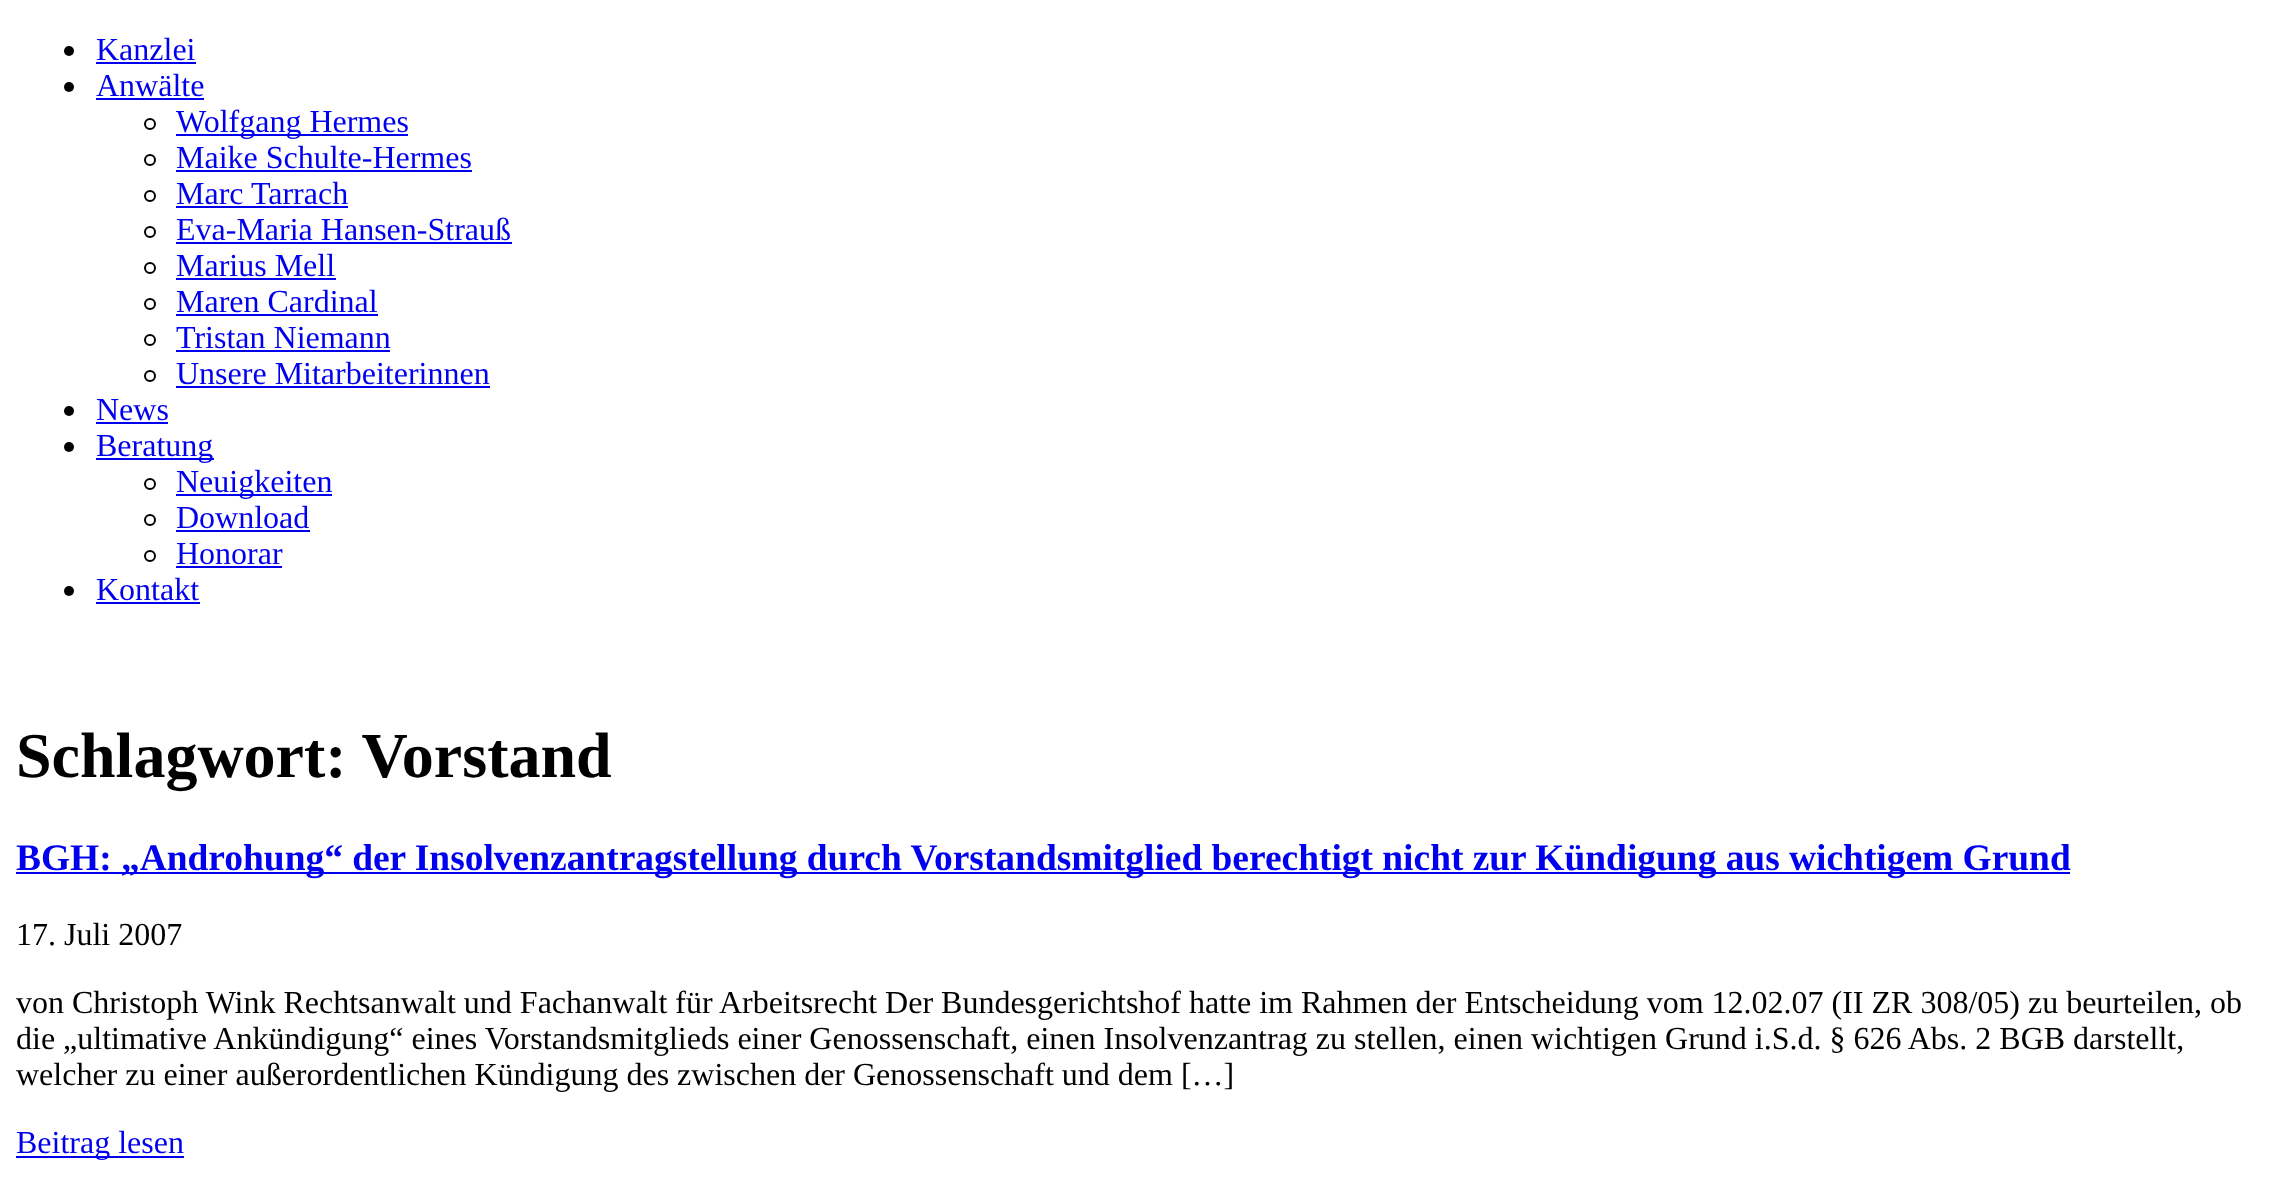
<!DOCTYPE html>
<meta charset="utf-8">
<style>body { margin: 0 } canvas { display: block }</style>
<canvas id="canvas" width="2280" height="1197"></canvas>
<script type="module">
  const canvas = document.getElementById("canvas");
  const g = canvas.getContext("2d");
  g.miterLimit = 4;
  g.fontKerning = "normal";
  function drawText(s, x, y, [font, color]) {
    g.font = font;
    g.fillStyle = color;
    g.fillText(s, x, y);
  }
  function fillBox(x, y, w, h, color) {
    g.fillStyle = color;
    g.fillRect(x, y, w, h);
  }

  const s1 = ["32px Liberation Serif", "#0000EE"];
  const s2 = ["bold 64px Liberation Serif", "#000000"];
  const s3 = ["bold 37.45px Liberation Serif", "#0000EE"];
  const s4 = ["32px Liberation Serif", "#000000"];

  fillBox(0, 0, 2280, 1197, "#FFFFFF");
  g.fillStyle = "#000000";
  g.beginPath();
  g.arc(69, 51, 5, 0, Math.PI * 2);
  g.fill();
  drawText("Kanzlei", 96, 60, s1);
  fillBox(96, 62, 100, 2, "#0000EE");
  g.fillStyle = "#000000";
  g.beginPath();
  g.arc(69, 87, 5, 0, Math.PI * 2);
  g.fill();
  drawText("Anwälte", 96, 96, s1);
  fillBox(96, 98, 108, 2, "#0000EE");
  g.beginPath();
  g.arc(150, 124, 5, 0, Math.PI * 2);
  g.strokeStyle = "#000000";
  g.lineWidth = 2;
  g.stroke();
  fillBox(176, 134, 232, 2, "#0000EE");
  drawText("Wolfgang Hermes", 176, 132, s1);
  g.beginPath();
  g.arc(150, 160, 5, 0, Math.PI * 2);
  g.stroke();
  drawText("Maike Schulte-Hermes", 176, 168, s1);
  fillBox(176, 170, 296, 2, "#0000EE");
  g.beginPath();
  g.arc(150, 196, 5, 0, Math.PI * 2);
  g.stroke();
  drawText("Marc Tarrach", 176, 204, s1);
  fillBox(176, 206, 172, 2, "#0000EE");
  g.beginPath();
  g.arc(150, 232, 5, 0, Math.PI * 2);
  g.stroke();
  drawText("Eva-Maria Hansen-Strauß", 176, 240, s1);
  fillBox(176, 242, 336, 2, "#0000EE");
  g.beginPath();
  g.arc(150, 268, 5, 0, Math.PI * 2);
  g.stroke();
  drawText("Marius Mell", 176, 276, s1);
  fillBox(176, 278, 160, 2, "#0000EE");
  g.beginPath();
  g.arc(150, 304, 5, 0, Math.PI * 2);
  g.stroke();
  drawText("Maren Cardinal", 176, 312, s1);
  fillBox(176, 314, 202, 2, "#0000EE");
  g.beginPath();
  g.arc(150, 340, 5, 0, Math.PI * 2);
  g.stroke();
  drawText("Tristan Niemann", 176, 348, s1);
  fillBox(176, 350, 214, 2, "#0000EE");
  g.beginPath();
  g.arc(150, 376, 5, 0, Math.PI * 2);
  g.stroke();
  drawText("Unsere Mitarbeiterinnen", 176, 384, s1);
  fillBox(176, 386, 314, 2, "#0000EE");
  g.fillStyle = "#000000";
  g.beginPath();
  g.arc(69, 411, 5, 0, Math.PI * 2);
  g.fill();
  drawText("News", 96, 420, s1);
  fillBox(96, 422, 72, 2, "#0000EE");
  g.fillStyle = "#000000";
  g.beginPath();
  g.arc(69, 447, 5, 0, Math.PI * 2);
  g.fill();
  fillBox(96, 458, 118, 2, "#0000EE");
  drawText("Beratung", 96, 456, s1);
  g.beginPath();
  g.arc(150, 484, 5, 0, Math.PI * 2);
  g.stroke();
  fillBox(176, 494, 156, 2, "#0000EE");
  drawText("Neuigkeiten", 176, 492, s1);
  g.beginPath();
  g.arc(150, 520, 5, 0, Math.PI * 2);
  g.stroke();
  drawText("Download", 176, 528, s1);
  fillBox(176, 530, 134, 2, "#0000EE");
  g.beginPath();
  g.arc(150, 556, 5, 0, Math.PI * 2);
  g.stroke();
  drawText("Honorar", 176, 564, s1);
  fillBox(176, 566, 106, 2, "#0000EE");
  g.fillStyle = "#000000";
  g.beginPath();
  g.arc(69, 591, 5, 0, Math.PI * 2);
  g.fill();
  drawText("Kontakt", 96, 600, s1);
  fillBox(96, 602, 104, 2, "#0000EE");
  drawText("Schlagwort: Vorstand", 16, 777, s2);
  fillBox(16, 872, 2054, 2, "#0000EE");
  g.wordSpacing = "-0.1px";
  drawText("BGH: „Androhung“ der Insolvenzantragstellung durch Vorstandsmitglied berechtigt nicht zur Kündigung aus wichtigem Grund", 16, 870, s3);
  g.wordSpacing = "0px";
  drawText("17. Juli 2007", 16, 945, s4);
  drawText("von Christoph Wink Rechtsanwalt und Fachanwalt für Arbeitsrecht Der Bundesgerichtshof hatte im Rahmen der Entscheidung vom 12.02.07 (II ZR 308/05) zu beurteilen, ob", 16, 1013, s4);
  drawText("die „ultimative Ankündigung“ eines Vorstandsmitglieds einer Genossenschaft, einen Insolvenzantrag zu stellen, einen wichtigen Grund i.S.d. § 626 Abs. 2 BGB darstellt,", 16, 1049, s4);
  drawText("welcher zu einer außerordentlichen Kündigung des zwischen der Genossenschaft und dem […]", 16, 1085, s4);
  fillBox(16, 1156, 168, 2, "#0000EE");
  drawText("Beitrag lesen", 16, 1153, s1);
</script>
